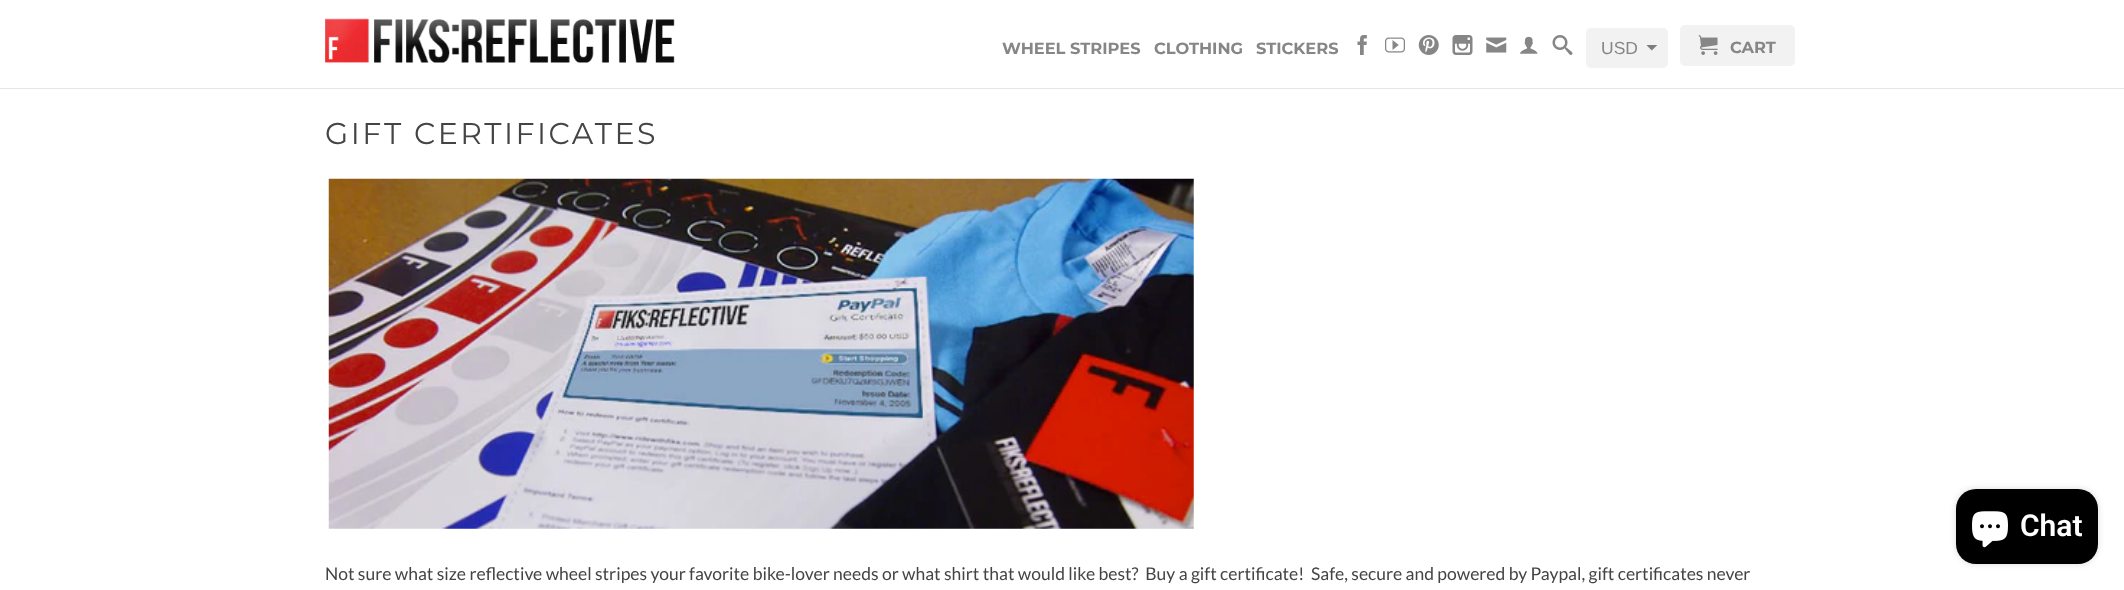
<!DOCTYPE html>
<meta charset="utf-8">
<style>body { margin: 0 } canvas { display: block }</style>
<canvas id="canvas" width="2124" height="590"></canvas>
<script type="module">
  const canvas = document.getElementById("canvas");
  const g = canvas.getContext("2d");
  g.miterLimit = 4;
  g.fontKerning = "normal";
  function drawText(s, x, y, [font, color]) {
    g.font = font;
    g.fillStyle = color;
    g.fillText(s, x, y);
  }
  function fillBox(x, y, w, h, color) {
    g.fillStyle = color;
    g.fillRect(x, y, w, h);
  }
  function fillRounded(x, y, w, h, r, color) {
    g.fillStyle = color;
    g.beginPath();
    g.roundRect(x, y, w, h, r);
    g.fill();
  }
  async function drawPicture(src, x, y, w, h) {
    const img = new Image();
    img.src = src;
    await img.decode();
    g.drawImage(img, x, y, w, h);
  }

  const s1 = ["bold 16.25px Montserrat", "#868686"];
  const s2 = ["17.5px Liberation Sans", "#868686"];
  const s3 = ["30px Montserrat", "#444444"];
  const s4 = ["17.5px Lato", "#444444"];
  const s5 = ["600 30px Roboto", "#FFFFFF"];

  fillBox(0, 0, 2124, 590, "#FFFFFF");
  fillBox(0, 88, 2124, 1, "#E6E6E6");
  await drawPicture("pic1.png", 325, 18, 350, 45);
  drawText("WHEEL STRIPES", 1002, 54, s1);
  drawText("CLOTHING", 1154, 54, s1);
  drawText("STICKERS", 1256, 54, s1);
  await drawPicture("pic2.png", 1357, 35, 10, 20);
  await drawPicture("pic3.png", 1385, 37, 20, 16);
  await drawPicture("pic4.png", 1418, 35, 21, 20);
  await drawPicture("pic5.png", 1452, 35, 21, 20);
  await drawPicture("pic6.png", 1486, 37, 21, 16);
  await drawPicture("pic7.png", 1520, 36, 18, 18);
  await drawPicture("pic8.png", 1552, 35, 21, 20);
  fillRounded(1586, 28, 82, 40, 5, "#F2F2F2");
  await drawPicture("pic9.png", 1646, 45, 12, 6);
  drawText("USD", 1601, 54, s2);
  fillRounded(1680, 25, 115, 41, 5, "#F2F2F2");
  await drawPicture("pic10.png", 1698, 35, 20, 20);
  drawText("CART", 1730, 53, s1);
  g.letterSpacing = "2.5px";
  drawText("GIFT CERTIFICATES", 325, 144, s3);
  await drawPicture("pic11.png", 328, 178, 866, 351);
  g.letterSpacing = "0px";
  drawText("Not sure what size reflective wheel stripes your favorite bike-lover needs or what shirt that would like best?  Buy a gift certificate!", 325, 580, s4);
  drawText("Safe, secure and powered by Paypal, gift certificates never", 1311, 580, s4);
  g.fillStyle = "rgba(0, 0, 0, 0.15)";
  g.filter = "blur(3px)";
  g.beginPath();
  g.roundRect(1956, 489, 142, 75, 20);
  g.fill();
  g.filter = "none";
  fillRounded(1956, 489, 142, 75, 20, "#000000");
  await drawPicture("pic12.png", 1972, 511, 36, 37);
  drawText("Chat", 2020, 536, s5);
</script>
